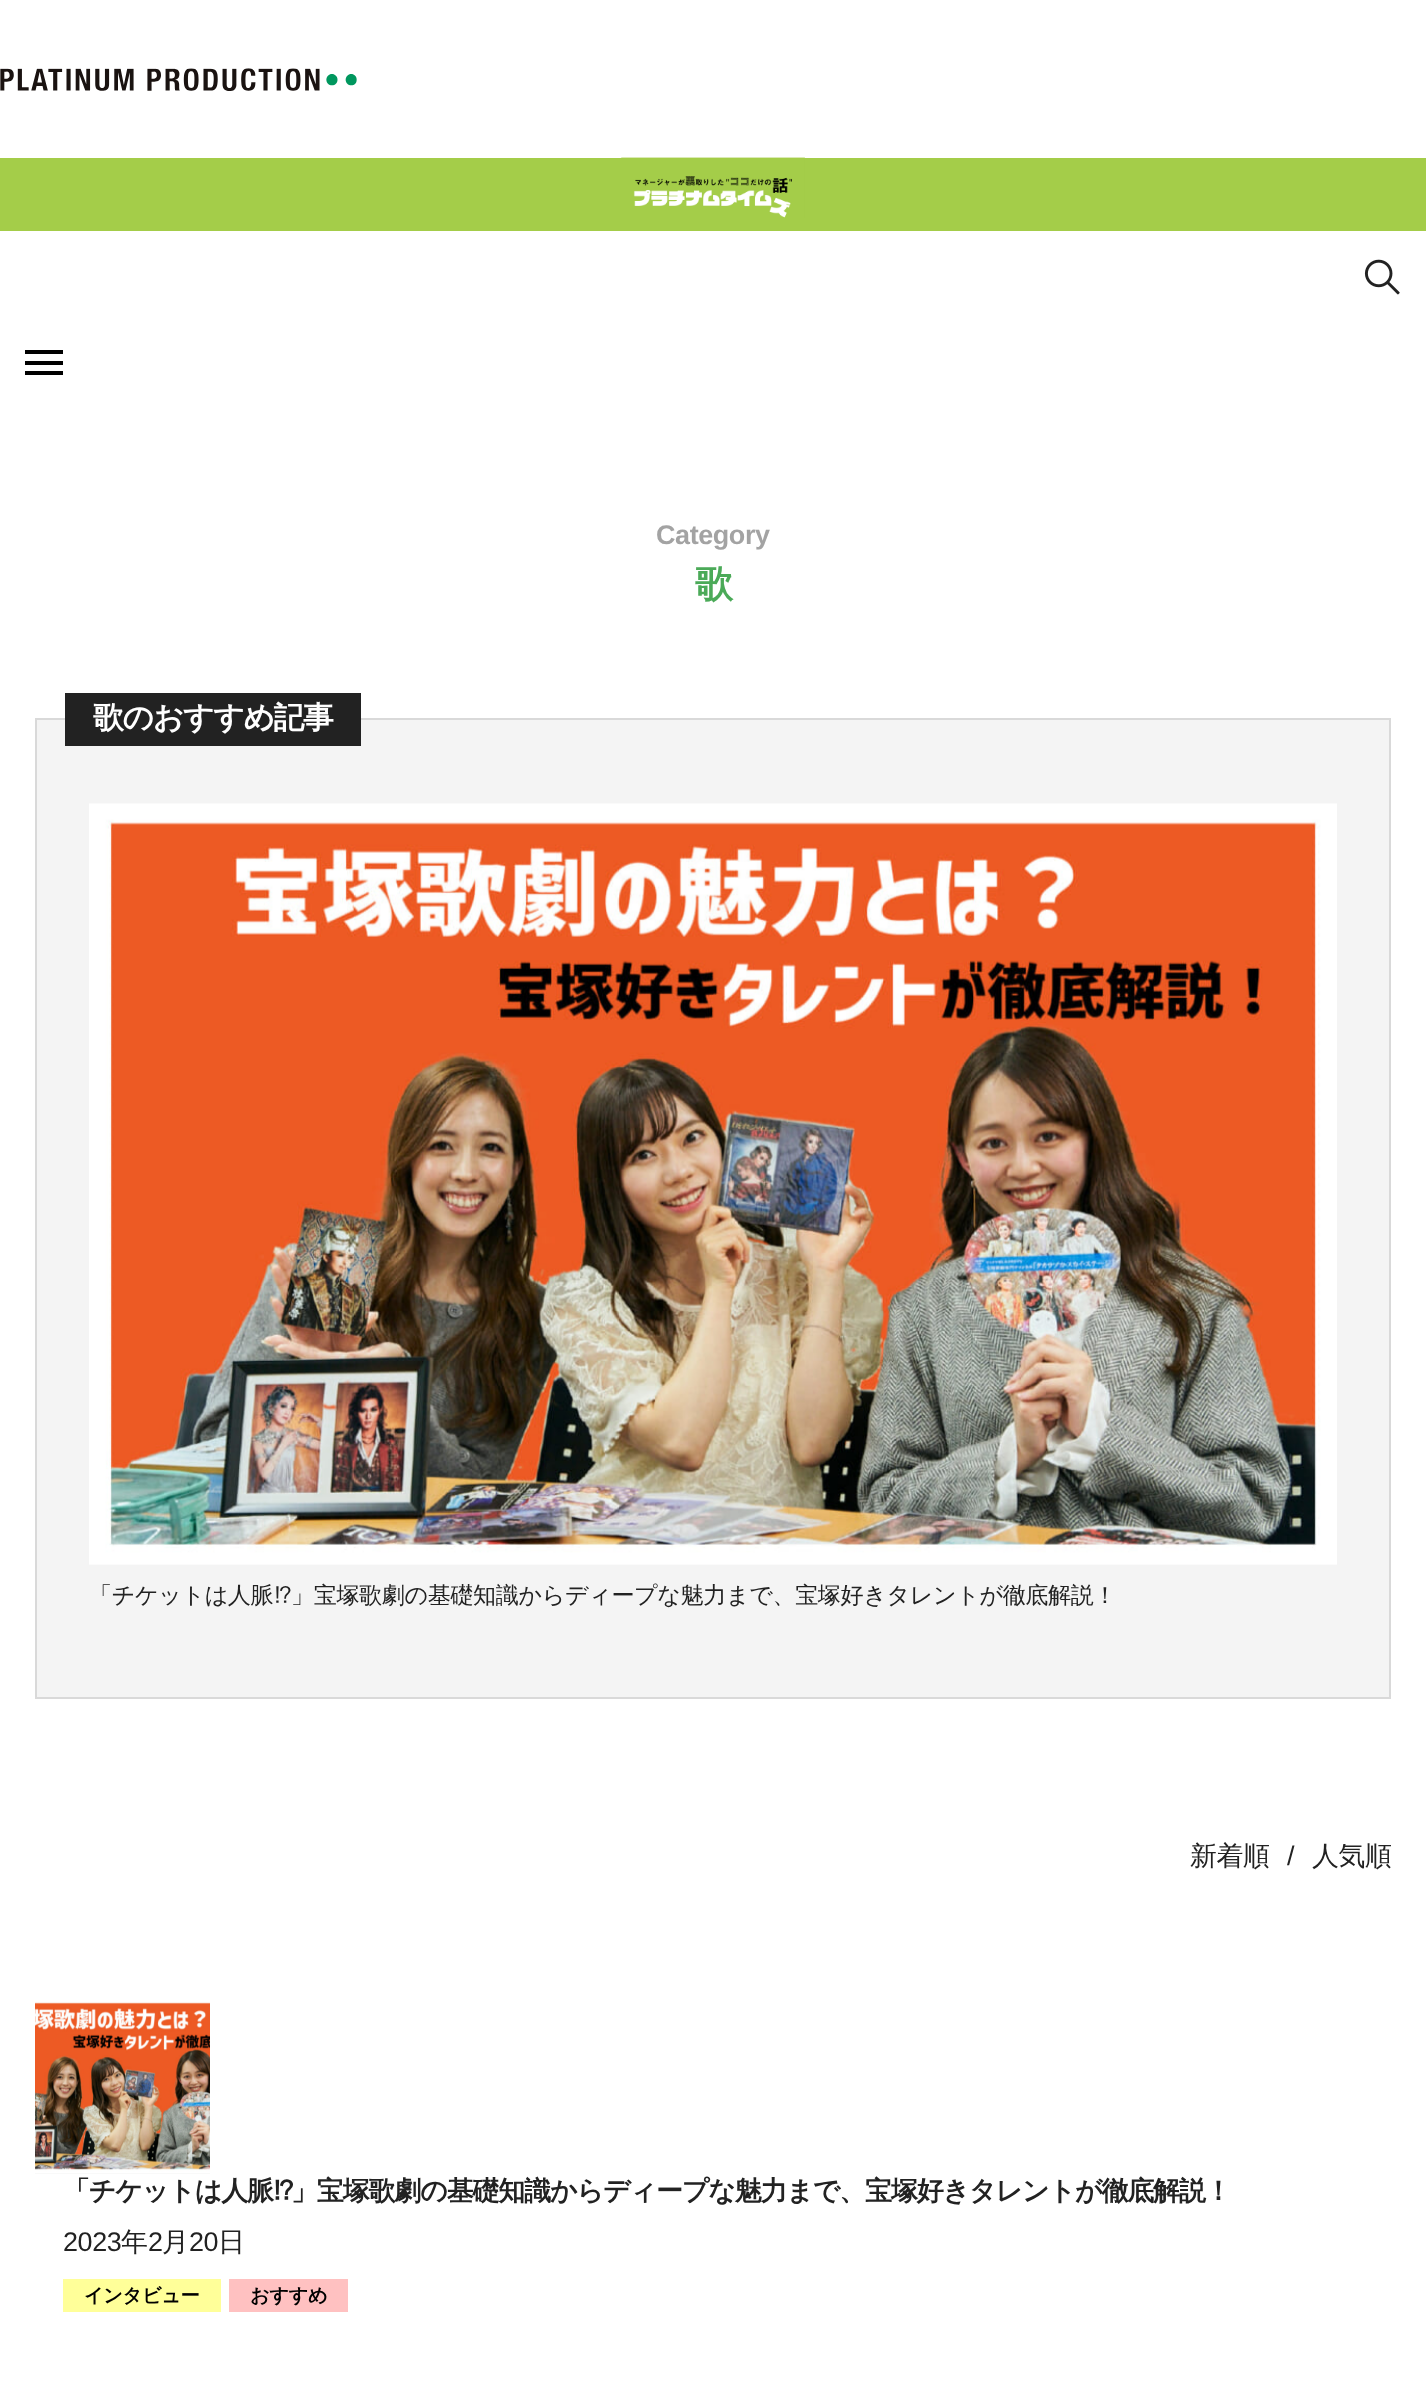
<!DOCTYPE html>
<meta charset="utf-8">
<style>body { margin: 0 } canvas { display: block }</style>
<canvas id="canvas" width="1426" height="2381"></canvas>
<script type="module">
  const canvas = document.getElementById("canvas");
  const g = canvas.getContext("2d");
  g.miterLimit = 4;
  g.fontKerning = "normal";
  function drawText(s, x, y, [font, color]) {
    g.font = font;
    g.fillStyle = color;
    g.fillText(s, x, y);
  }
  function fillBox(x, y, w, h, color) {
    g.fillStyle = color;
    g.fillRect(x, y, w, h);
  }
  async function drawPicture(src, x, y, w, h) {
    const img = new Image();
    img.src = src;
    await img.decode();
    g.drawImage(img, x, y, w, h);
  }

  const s1 = ["bold 26.95px Liberation Sans", "#A3A3A3"];
  const s2 = ["bold 38px WenQuanYi Zen Hei", "#4BAA58"];
  const s3 = ["bold 30.75px WenQuanYi Zen Hei", "#FFFFFF"];
  const s4 = ["500 23.1px WenQuanYi Zen Hei", "#222222"];
  const s5 = ["23.1px IPAPGothic", "#222222"];
  const s6 = ["500 26.95px WenQuanYi Zen Hei", "#222222"];
  const s7 = ["26.95px Liberation Sans", "#222222"];
  const s8 = ["bold 26.95px WenQuanYi Zen Hei", "#222222"];
  const s9 = ["bold 26.95px IPAPGothic", "#222222"];
  const s10 = ["bold 19.25px WenQuanYi Zen Hei", "#000000"];

  fillBox(0, 0, 1426, 2381, "#FFFFFF");
  await drawPicture("pic1.png", 0, 68, 357, 23);
  fillBox(0, 158, 1426, 73, "#A4CD49");
  await drawPicture("pic2.png", 621, 157, 184, 61);
  await drawPicture("pic3.png", 1364, 259, 36, 36);
  fillBox(25, 350, 38, 4, "#000000");
  fillBox(25, 361, 38, 4, "#000000");
  fillBox(25, 371, 38, 4, "#000000");
  g.letterSpacing = "-0.4px";
  drawText("Category", 656, 544, s1);
  g.letterSpacing = "-2px";
  drawText("歌", 695, 597, s2);
  g.fillStyle = "#F4F4F4";
  g.beginPath();
  g.rect(36, 719, 1354, 979);
  g.fill();
  g.strokeStyle = "#D9D9D9";
  g.lineWidth = 2;
  g.stroke();
  fillBox(65, 693, 296, 53, "#222222");
  g.letterSpacing = "-1.25px";
  drawText("歌のおすすめ記事", 93, 728, s3);
  await drawPicture("pic4.png", 89, 803, 1248, 762);
  g.letterSpacing = "-0.4px";
  drawText("「チケットは人脈", 89, 1603, s4);
  drawText("⁉︎", 274, 1603, s5);
  drawText("」宝塚歌劇の基礎知識からディープな魅力まで、宝塚好きタレントが徹底解説！", 291, 1603, s4);
  drawText("新着順", 1190, 1865, s6);
  drawText("/", 1287, 1865, s7);
  drawText("人気順", 1312, 1865, s6);
  fillBox(35, 2173, 175, 1, "#F4F4F4");
  await drawPicture("pic5.png", 35, 1999, 175, 175);
  g.letterSpacing = "-1.1px";
  drawText("「チケットは人脈", 63, 2200, s8);
  drawText("⁉︎", 273, 2200, s9);
  drawText("」宝塚歌劇の基礎知識からディープな魅力まで、宝塚好きタレントが徹底解説！", 291, 2200, s8);
  g.letterSpacing = "-0.4px";
  drawText("2023", 63, 2251, s7);
  drawText("年", 121, 2251, s6);
  drawText("2", 148, 2251, s7);
  drawText("月", 162, 2251, s6);
  drawText("20", 189, 2251, s7);
  drawText("日", 218, 2251, s6);
  fillBox(63, 2279, 158, 33, "#FFFF99");
  drawText("インタビュー", 84, 2302, s10);
  fillBox(229, 2279, 119, 33, "#FFC1C1");
  drawText("おすすめ", 250, 2302, s10);
</script>
